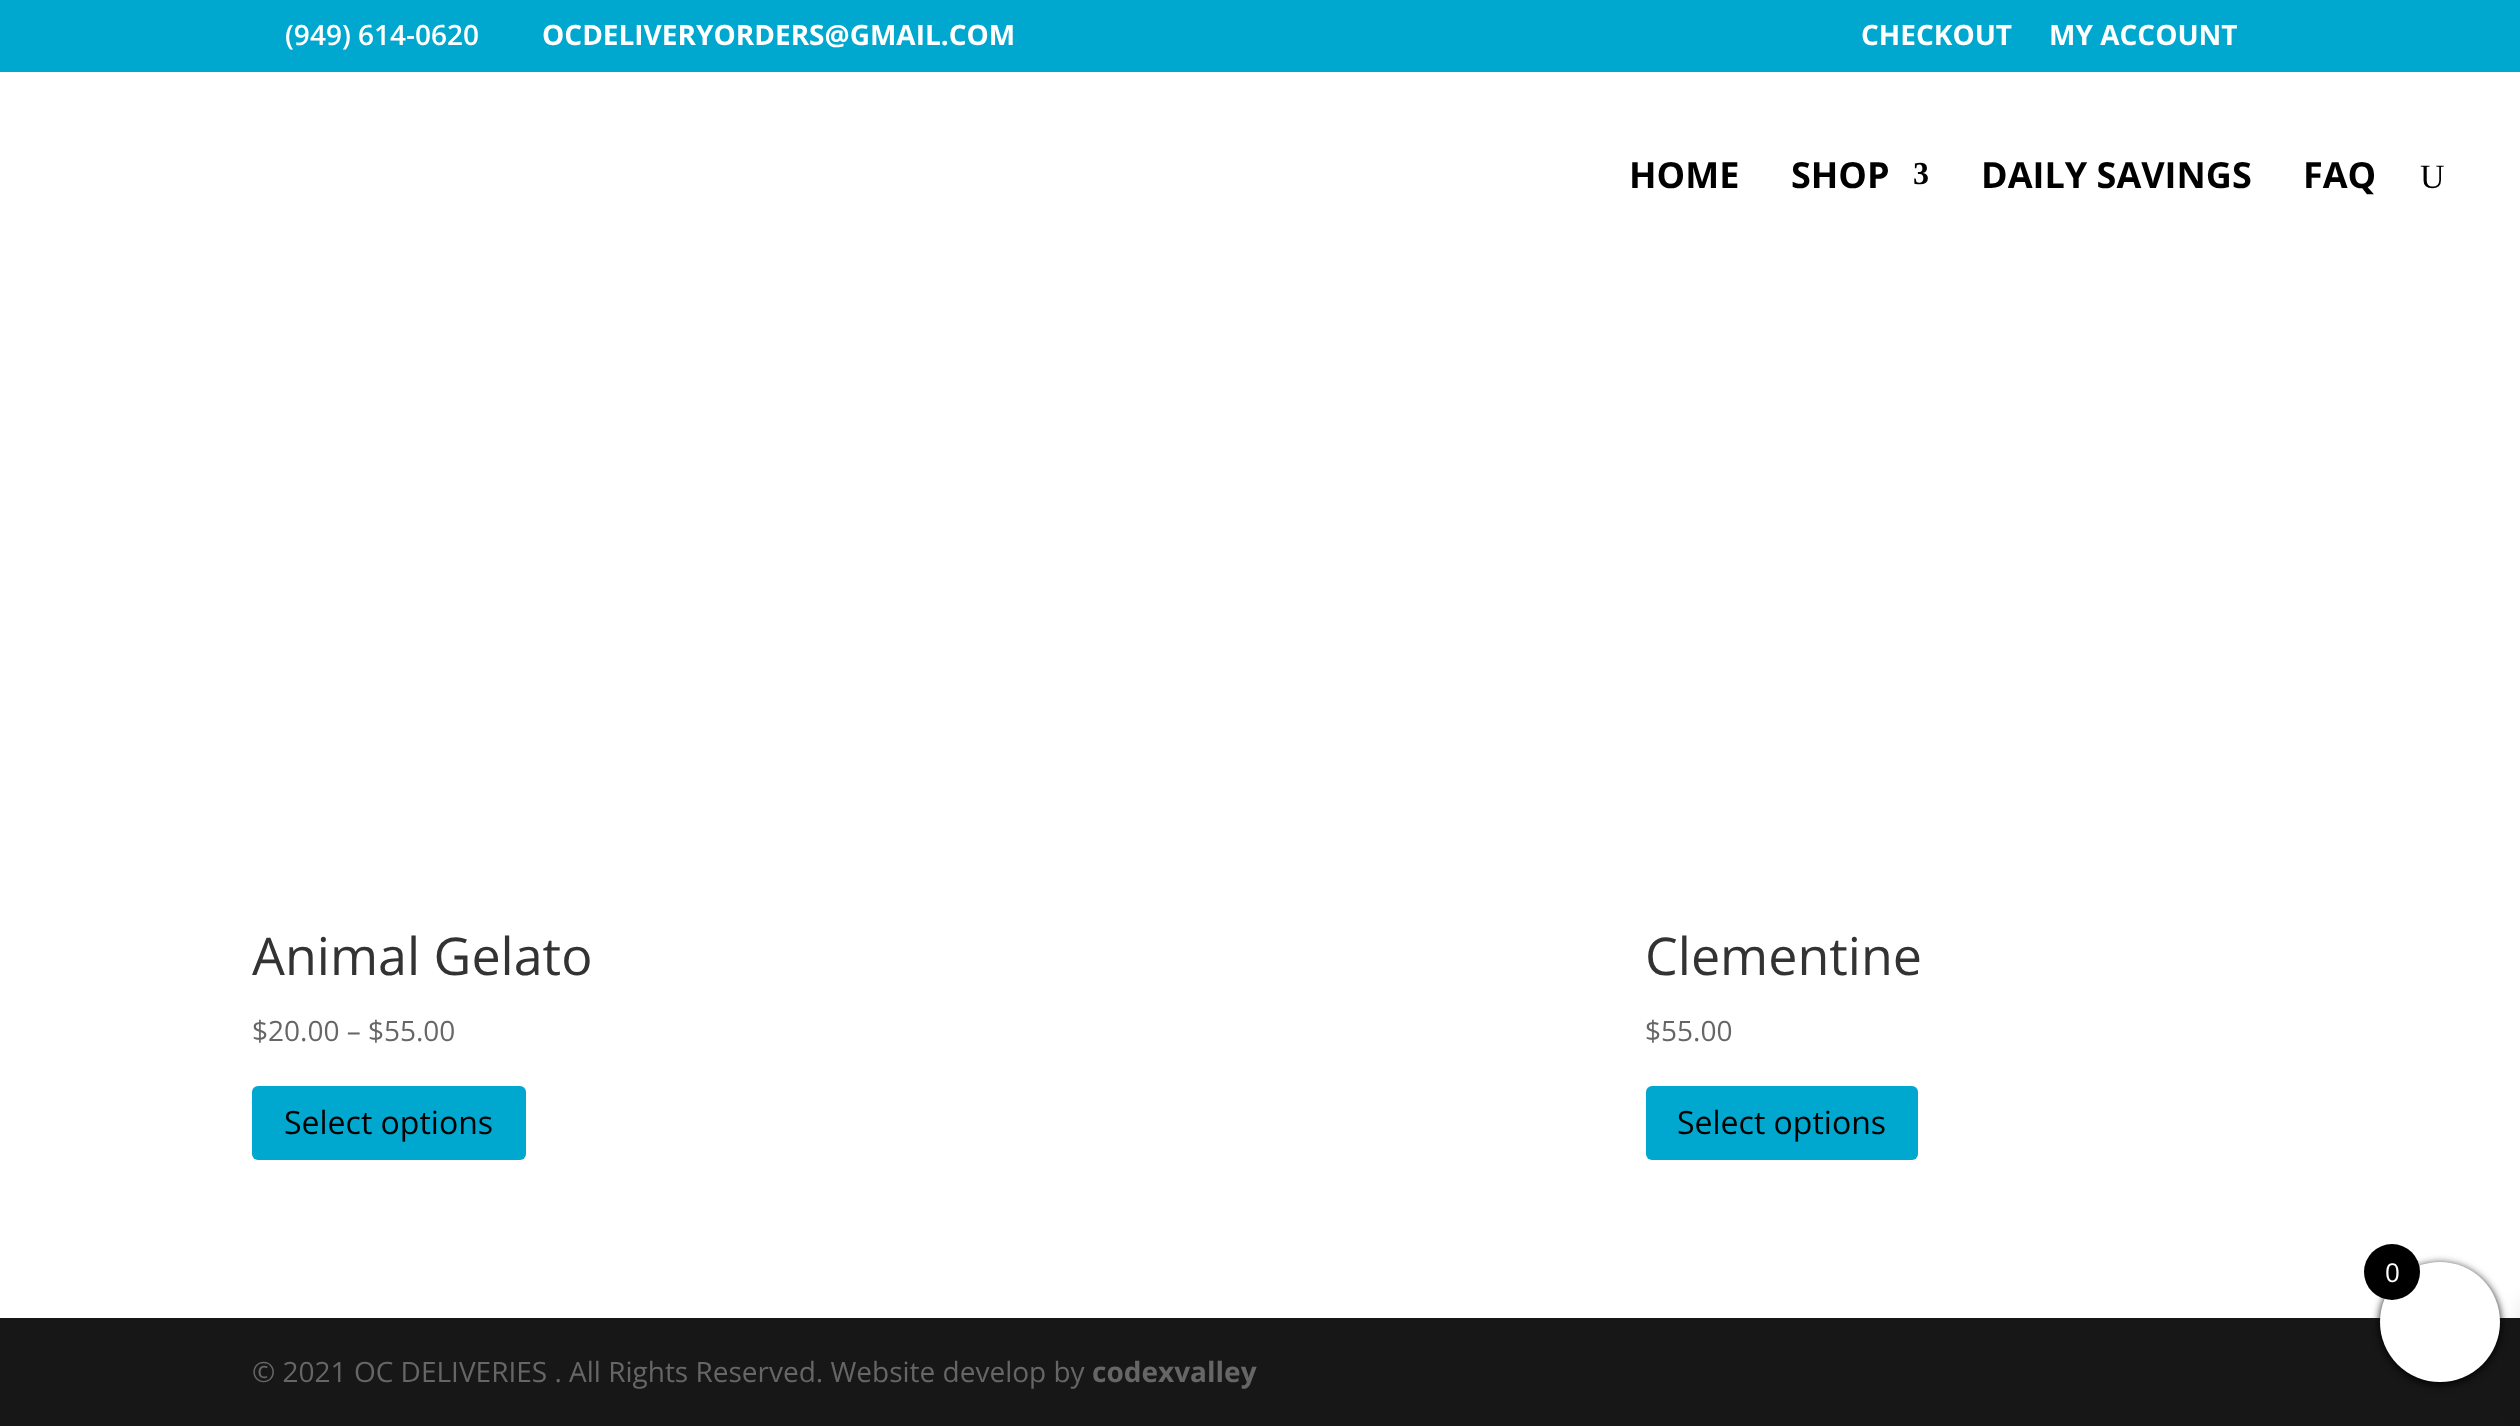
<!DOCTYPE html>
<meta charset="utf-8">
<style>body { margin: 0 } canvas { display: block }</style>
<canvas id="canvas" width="2520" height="1426"></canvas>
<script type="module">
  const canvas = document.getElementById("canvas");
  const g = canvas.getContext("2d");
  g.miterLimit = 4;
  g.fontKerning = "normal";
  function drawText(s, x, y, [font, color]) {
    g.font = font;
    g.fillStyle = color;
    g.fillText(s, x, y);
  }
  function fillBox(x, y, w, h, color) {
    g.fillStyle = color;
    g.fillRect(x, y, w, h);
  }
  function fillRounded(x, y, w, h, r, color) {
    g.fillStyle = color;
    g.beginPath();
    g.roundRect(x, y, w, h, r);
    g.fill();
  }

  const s1 = ["600 28px Open Sans", "#FFFFFF"];
  const s2 = ["bold 28px Open Sans", "#FFFFFF"];
  const s3 = ["bold 36px Open Sans", "#000000"];
  const s4 = ["bold 32px Liberation Serif", "#000000"];
  const s5 = ["34px Liberation Serif", "#000000"];
  const s6 = ["52px Open Sans", "#333333"];
  const s7 = ["28px Open Sans", "#666666"];
  const s8 = ["32px Open Sans", "#000000"];
  const s9 = ["bold 28px Open Sans", "#666666"];
  const s10 = ["26px Open Sans", "#FFFFFF"];

  fillBox(0, 0, 2520, 1426, "#FFFFFF");
  fillBox(0, 0, 2520, 72, "#00A7CE");
  drawText("(949) 614-0620", 285, 45, s1);
  drawText("OCDELIVERYORDERS@GMAIL.COM", 542, 45, s2);
  drawText("CHECKOUT", 1861, 45, s2);
  drawText("MY ACCOUNT", 2049, 45, s2);
  drawText("HOME", 1629, 188, s3);
  drawText("SHOP", 1791, 188, s3);
  drawText("3", 1913, 184, s4);
  drawText("DAILY SAVINGS", 1981, 188, s3);
  drawText("FAQ", 2303, 188, s3);
  drawText("U", 2420, 188, s5);
  drawText("Animal Gelato", 252, 975, s6);
  drawText("$20.00 – $55.00", 252, 1041, s7);
  fillRounded(252, 1086, 274, 74, 6, "#00A7CE");
  drawText("Select options", 284, 1134, s8);
  drawText("Clementine", 1645, 975, s6);
  drawText("$55.00", 1645, 1041, s7);
  fillRounded(1646, 1086, 272, 74, 6, "#00A7CE");
  drawText("Select options", 1677, 1134, s8);
  fillBox(0, 1318, 2520, 108, "#171717");
  drawText("© 2021 OC DELIVERIES . All Rights Reserved. Website develop by", 252, 1382, s7);
  drawText("codexvalley", 1092, 1382, s9);
  g.fillStyle = "#000000";
  g.filter = "blur(4px)";
  g.beginPath();
  g.roundRect(2380, 1264, 120, 120, 60);
  g.fill();
  g.filter = "none";
  g.fillStyle = "rgba(0, 0, 0, 0.1)";
  g.filter = "blur(10px)";
  g.beginPath();
  g.rect(2520, 1302, 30, 114);
  g.fill();
  g.filter = "none";
  g.fillStyle = "#FFFFFF";
  g.beginPath();
  g.arc(2440, 1322, 60, 0, Math.PI * 2);
  g.fill();
  g.fillStyle = "#000000";
  g.beginPath();
  g.arc(2392, 1272, 28, 0, Math.PI * 2);
  g.fill();
  drawText("0", 2385, 1282, s10);
</script>
